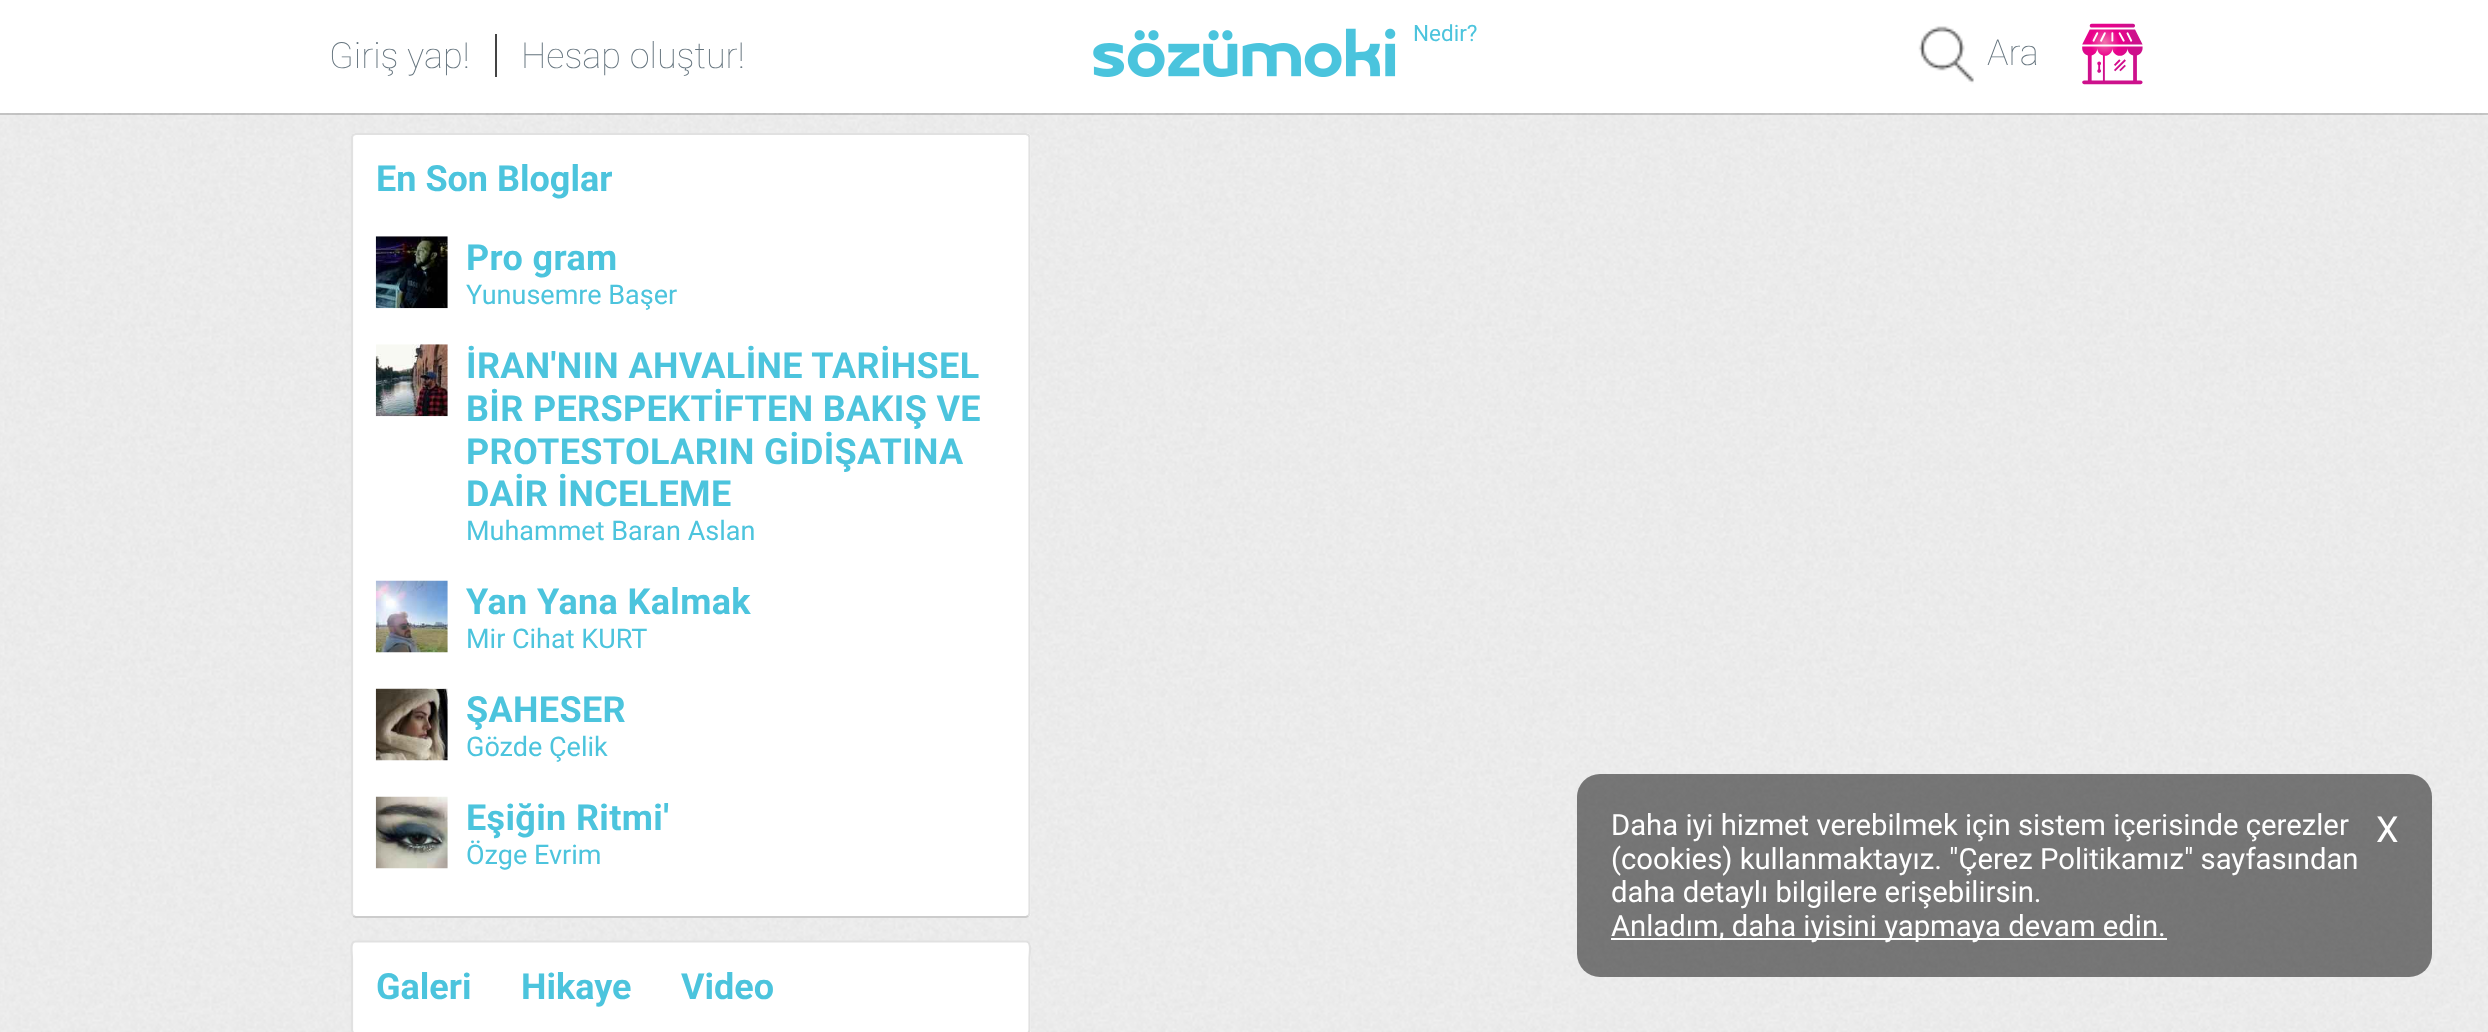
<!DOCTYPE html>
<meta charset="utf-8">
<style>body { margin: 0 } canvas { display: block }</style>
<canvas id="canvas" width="2488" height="1032"></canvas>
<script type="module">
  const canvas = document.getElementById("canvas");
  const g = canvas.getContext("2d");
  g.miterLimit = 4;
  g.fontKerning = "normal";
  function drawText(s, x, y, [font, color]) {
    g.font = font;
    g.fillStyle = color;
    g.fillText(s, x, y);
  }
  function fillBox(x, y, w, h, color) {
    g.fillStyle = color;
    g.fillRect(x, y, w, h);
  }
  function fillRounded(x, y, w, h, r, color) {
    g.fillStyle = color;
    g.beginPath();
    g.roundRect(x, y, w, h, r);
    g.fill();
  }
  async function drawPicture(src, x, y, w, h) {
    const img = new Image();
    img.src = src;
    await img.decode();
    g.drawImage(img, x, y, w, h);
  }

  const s1 = ["100 36px Roboto", "#66757F"];
  const s2 = ["22.5px Roboto", "#4CC4DD"];
  const s3 = ["bold 36px Roboto", "#4CC4DD"];
  const s4 = ["27px Roboto", "#4CC4DD"];
  const s5 = ["29.25px Roboto", "#FFFFFF"];
  const s6 = ["36px Roboto", "#FFFFFF"];

  fillBox(0, 0, 2488, 1032, "#FFFFFF");
  await drawPicture("pic1.png", 0, 113, 2488, 919);
  g.fillStyle = "rgba(0, 0, 0, 0.17)";
  g.beginPath();
  g.moveTo(0, 112);
  g.lineTo(0, 115);
  g.lineTo(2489, 115);
  g.lineTo(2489, 2);
  g.lineTo(2488, 2);
  g.lineTo(2488, 112);
  g.closePath();
  g.fill();
  fillBox(0, 112, 2488, 1, "#FFFFFF");
  drawText("Giriş yap!", 329, 68, s1);
  fillBox(495, 34, 2, 43, "#444444");
  drawText("Hesap oluştur!", 521, 68, s1);
  await drawPicture("pic2.png", 1093, 28, 303, 49);
  drawText("Nedir?", 1413, 41, s2);
  fillBox(1918, 26, 56, 58, "#444444");
  await drawPicture("pic3.png", 1888, 0, 173, 108);
  drawText("Ara", 1987, 65, s1);
  await drawPicture("pic4.png", 2082, 23, 61, 62);
  fillRounded(351, 133, 680, 785, 5, "#FFFFFF");
  g.beginPath();
  g.moveTo(1028.5, 916);
  g.lineTo(1026, 917);
  g.lineTo(355.5, 917);
  g.lineTo(353, 916);
  g.strokeStyle = "#CCCCCC";
  g.lineWidth = 2.2;
  g.stroke();
  g.beginPath();
  g.moveTo(353, 916);
  g.lineTo(352, 913.5);
  g.lineTo(352, 137);
  g.lineTo(353, 135);
  g.lineTo(355.5, 134);
  g.lineTo(1026, 134);
  g.lineTo(1028.5, 135);
  g.lineTo(1029.5, 137);
  g.lineTo(1029.5, 913.5);
  g.lineTo(1028.5, 916);
  g.strokeStyle = "#E1E1E1";
  g.stroke();
  drawText("En Son Bloglar", 376, 191, s3);
  await drawPicture("pic5.png", 375, 236, 73, 73);
  g.letterSpacing = "0.35px";
  drawText("Pro gram", 466, 270, s3);
  g.letterSpacing = "0px";
  drawText("Yunusemre Başer", 466, 304, s4);
  await drawPicture("pic6.png", 375, 344, 73, 73);
  g.letterSpacing = "0.35px";
  drawText("İRAN'NIN AHVALİNE TARİHSEL", 466, 378, s3);
  drawText("BİR PERSPEKTİFTEN BAKIŞ VE", 466, 421, s3);
  drawText("PROTESTOLARIN GİDİŞATINA", 466, 464, s3);
  drawText("DAİR İNCELEME", 466, 506, s3);
  g.letterSpacing = "0px";
  drawText("Muhammet Baran Aslan", 466, 540, s4);
  await drawPicture("pic7.png", 375, 580, 73, 73);
  g.letterSpacing = "0.35px";
  drawText("Yan Yana Kalmak", 466, 614, s3);
  g.letterSpacing = "0px";
  drawText("Mir Cihat KURT", 466, 648, s4);
  await drawPicture("pic8.png", 375, 688, 73, 73);
  g.letterSpacing = "0.35px";
  drawText("ŞAHESER", 466, 722, s3);
  g.letterSpacing = "0px";
  drawText("Gözde Çelik", 466, 756, s4);
  await drawPicture("pic9.png", 375, 796, 73, 73);
  g.letterSpacing = "0.35px";
  drawText("Eşiğin Ritmi'", 466, 830, s3);
  g.letterSpacing = "0px";
  drawText("Özge Evrim", 466, 864, s4);
  fillRounded(351, 941, 680, 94, 5, "#FFFFFF");
  g.beginPath();
  g.moveTo(353, 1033);
  g.lineTo(352, 1030.5);
  g.lineTo(352, 959);
  g.bezierCurveTo(352, 952.5, 349.5, 941.5, 355.5, 941.5);
  g.lineTo(1026, 941.5);
  g.bezierCurveTo(1032, 941.5, 1029.5, 952.5, 1029.5, 959);
  g.lineTo(1029.5, 1030.5);
  g.lineTo(1028.5, 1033);
  g.stroke();
  drawText("Galeri", 376, 999, s3);
  drawText("Hikaye", 521, 999, s3);
  drawText("Video", 681, 999, s3);
  fillRounded(1577, 774, 855, 203, 23, "rgba(0, 0, 0, 0.5)");
  drawText("Daha iyi hizmet verebilmek için sistem içerisinde çerezler", 1611, 835, s5);
  drawText("(cookies) kullanmaktayız. \"Çerez Politikamız\" sayfasından", 1611, 869, s5);
  drawText("daha detaylı bilgilere erişebilirsin.", 1611, 902, s5);
  drawText("X", 2376, 842, s6);
  fillBox(1611, 938, 556, 2, "#FFFFFF");
  drawText("Anladım, daha iyisini yapmaya devam edin.", 1611, 936, s5);
</script>
